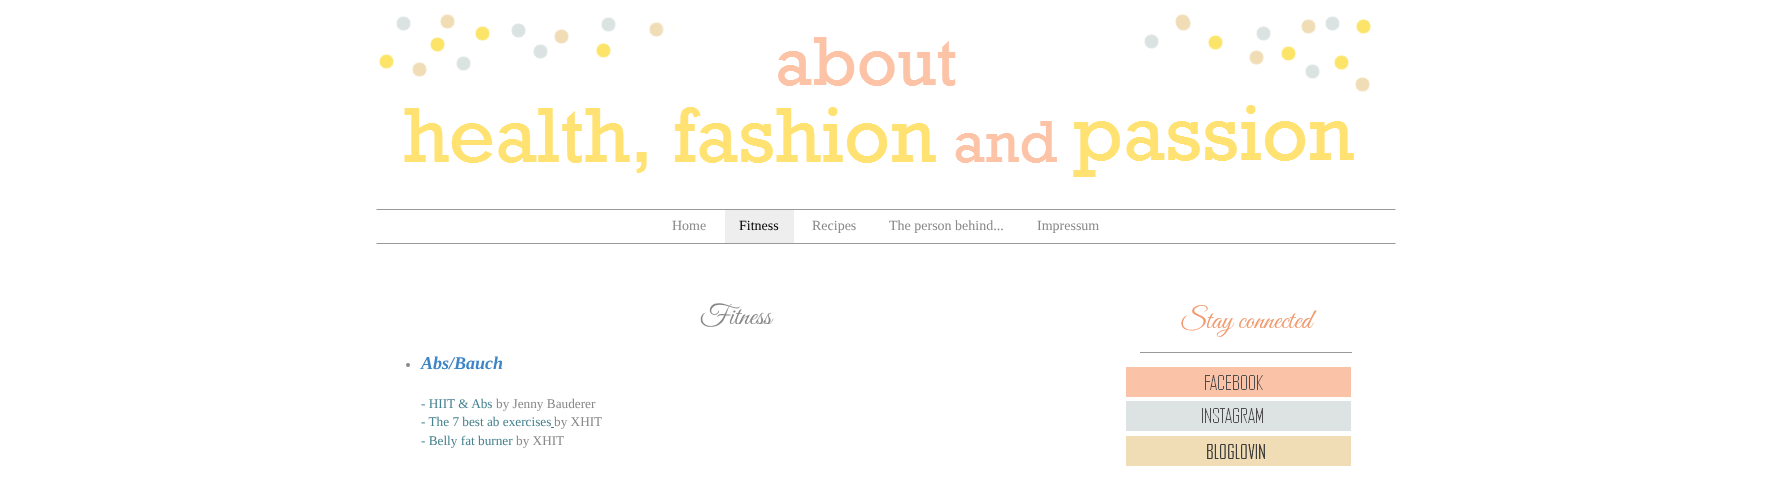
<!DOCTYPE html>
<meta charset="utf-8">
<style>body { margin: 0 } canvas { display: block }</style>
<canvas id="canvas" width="1772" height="478"></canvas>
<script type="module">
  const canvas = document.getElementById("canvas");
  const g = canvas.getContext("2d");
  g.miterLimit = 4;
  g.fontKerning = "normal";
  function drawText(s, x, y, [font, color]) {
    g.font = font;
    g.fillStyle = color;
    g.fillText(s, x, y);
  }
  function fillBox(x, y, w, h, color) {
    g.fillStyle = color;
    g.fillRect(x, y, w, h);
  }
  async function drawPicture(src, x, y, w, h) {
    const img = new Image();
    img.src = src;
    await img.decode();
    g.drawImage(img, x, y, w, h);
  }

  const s1 = ["14px Liberation Serif", "#888888"];
  const s2 = ["14px Liberation Serif", "#000000"];
  const s3 = ["28px Great Vibes", "#888888"];
  const s4 = ["italic bold 18px Liberation Serif", "#3D85C6"];
  const s5 = ["13.25px Liberation Serif", "#45818E"];
  const s6 = ["13.25px Liberation Serif", "#888888"];
  const s7 = ["28px Great Vibes", "#F2996D"];

  fillBox(0, 0, 1772, 478, "#FFFFFF");
  await drawPicture("pic1.png", 379, 14, 992, 163);
  g.fillStyle = "#999999";
  g.beginPath();
  g.moveTo(376, 209);
  g.lineTo(1396, 209);
  g.lineTo(1395, 210);
  g.lineTo(377, 210);
  g.closePath();
  g.fill();
  g.beginPath();
  g.moveTo(1396, 244);
  g.lineTo(376, 244);
  g.lineTo(377, 243);
  g.lineTo(1395, 243);
  g.closePath();
  g.fill();
  drawText("Home", 672, 230, s1);
  fillBox(725, 210, 69, 33, "#EEEEEE");
  drawText("Fitness", 739, 230, s2);
  drawText("Recipes", 812, 230, s1);
  drawText("The person behind...", 889, 230, s1);
  drawText("Impressum", 1037, 230, s1);
  drawText("Fitness", 700, 324, s3);
  g.beginPath();
  g.arc(408, 365, 2, 0, Math.PI * 2);
  g.fill();
  drawText("Abs/Bauch", 421, 369, s4);
  drawText("- HIIT & Abs", 421, 408, s5);
  drawText("by Jenny Bauderer", 496, 408, s6);
  drawText("- The 7 best ab exercises", 421, 426, s5);
  drawText("by XHIT", 554, 426, s6);
  fillBox(551, 427, 3, 1, "#45818E");
  drawText("- Belly fat burner", 421, 445, s5);
  drawText("by XHIT", 516, 445, s6);
  fillBox(1140, 352, 212, 1, "#999999");
  drawText("Stay connected", 1180, 328, s7);
  await drawPicture("pic2.png", 1126, 367, 225, 30);
  await drawPicture("pic3.png", 1126, 401, 225, 30);
  await drawPicture("pic4.png", 1126, 436, 225, 30);
</script>
